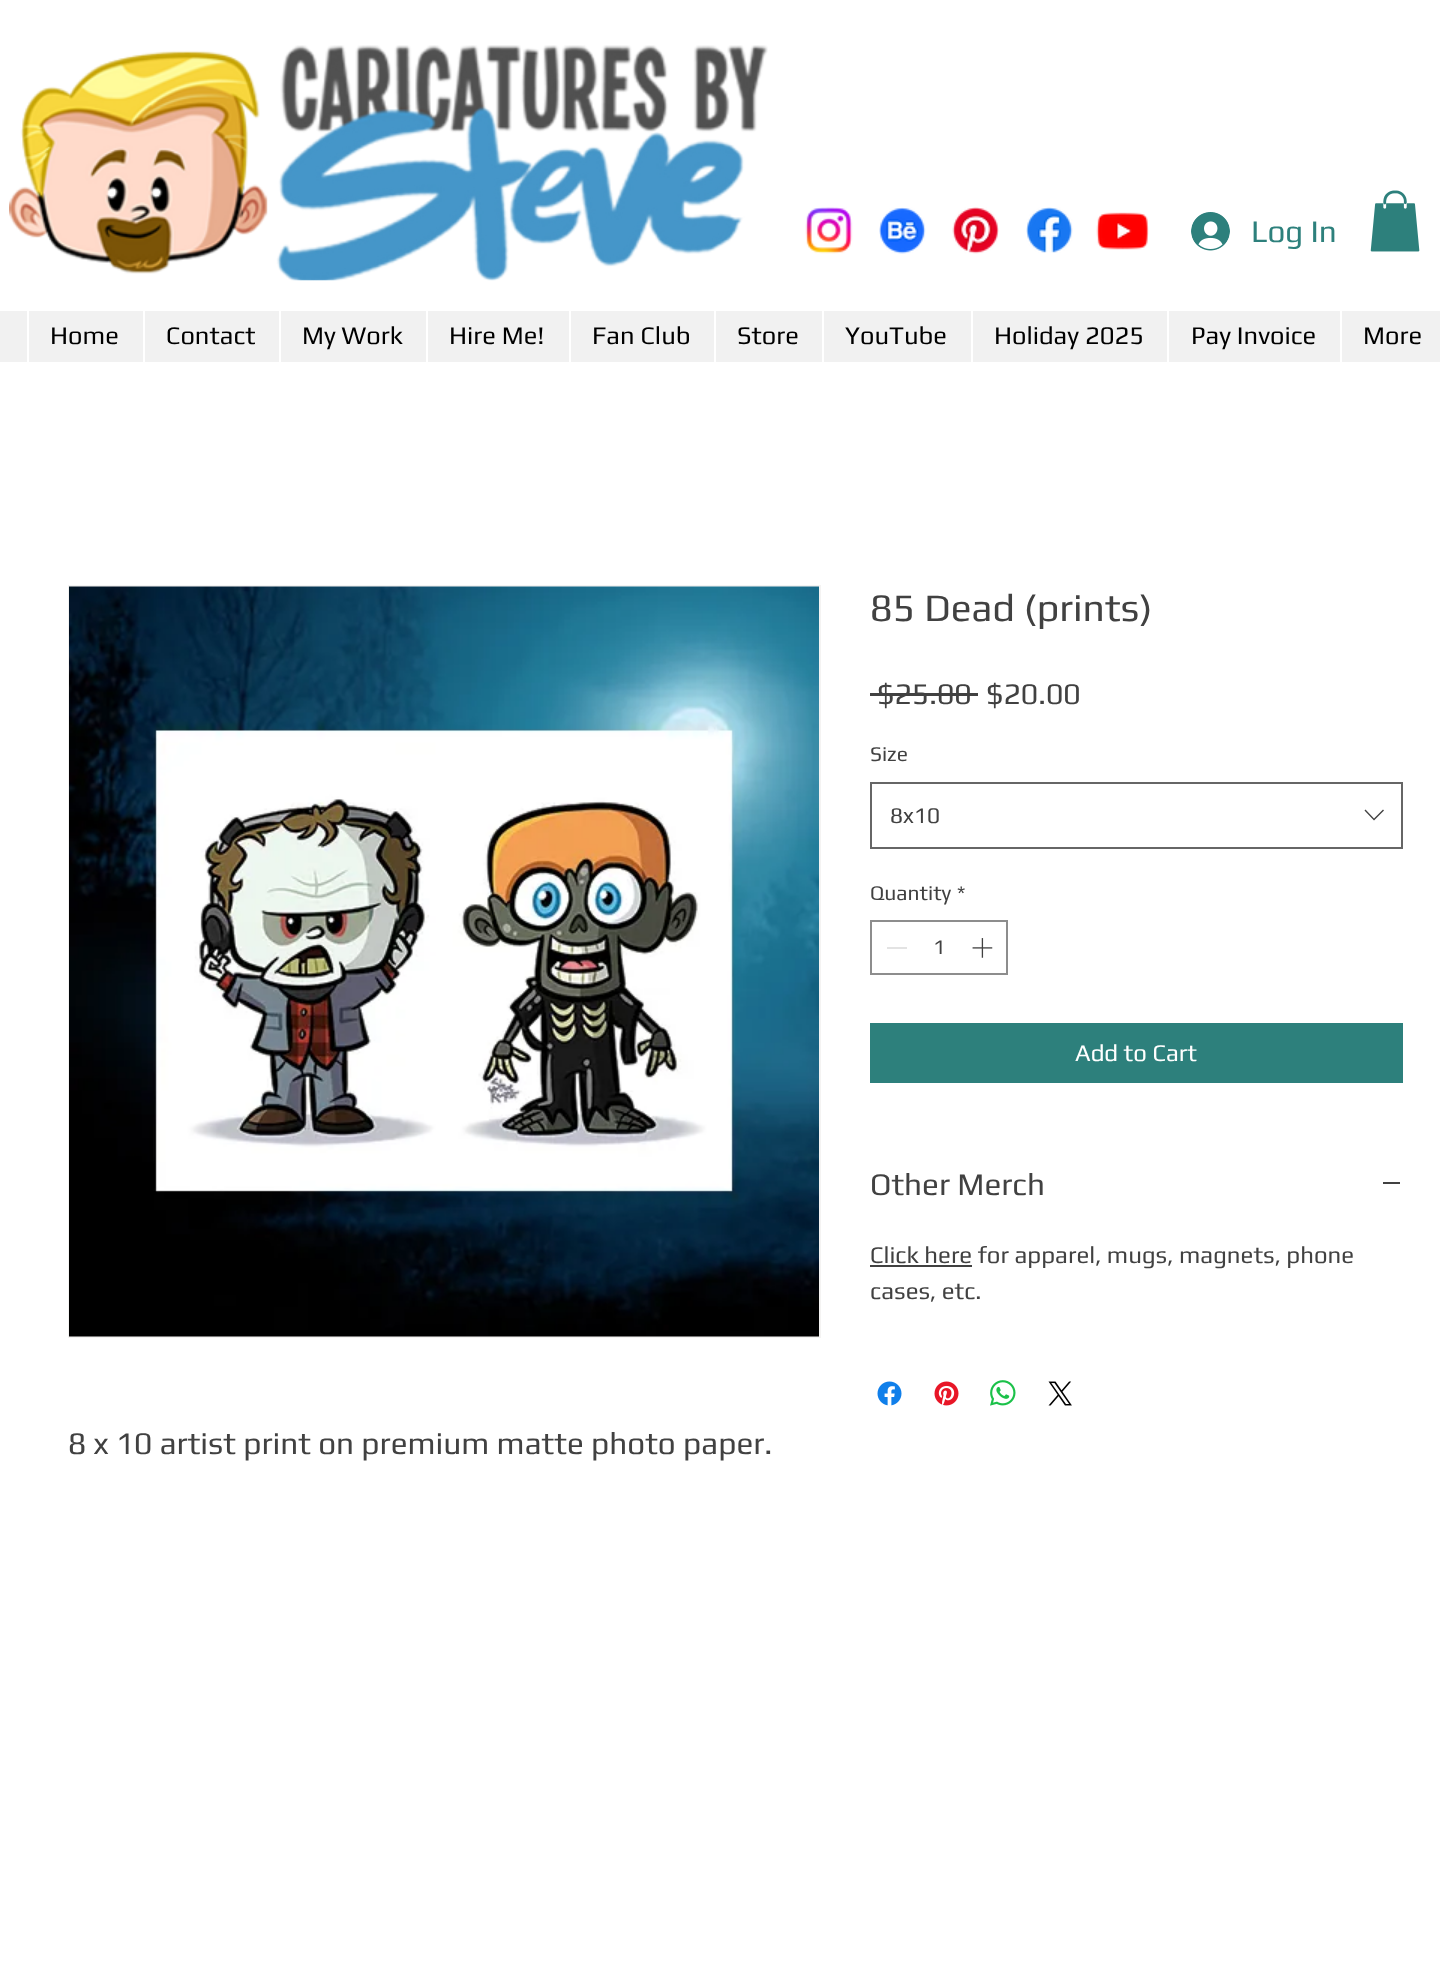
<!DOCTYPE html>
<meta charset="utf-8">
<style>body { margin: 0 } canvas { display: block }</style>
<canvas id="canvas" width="1440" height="1981"></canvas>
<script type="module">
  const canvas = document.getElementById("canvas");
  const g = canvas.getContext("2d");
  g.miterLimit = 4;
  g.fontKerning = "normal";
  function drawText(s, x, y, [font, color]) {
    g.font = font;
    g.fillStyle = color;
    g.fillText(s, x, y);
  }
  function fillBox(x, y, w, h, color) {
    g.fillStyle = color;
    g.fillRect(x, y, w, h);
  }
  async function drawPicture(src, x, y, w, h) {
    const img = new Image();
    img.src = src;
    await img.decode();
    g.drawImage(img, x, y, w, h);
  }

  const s1 = ["31.5px Play", "#2D807C"];
  const s2 = ["25.5px Play", "#000000"];
  const s3 = ["39px Play", "#414141"];
  const s4 = ["30px Play", "#414141"];
  const s5 = ["21px Play", "#414141"];
  const s6 = ["22.5px Play", "#414141"];
  const s7 = ["24px Play", "#FFFFFF"];
  const s8 = ["31.5px Play", "#414141"];
  const s9 = ["24px Play", "#414141"];

  fillBox(0, 0, 1440, 1981, "#FFFFFF");
  await drawPicture("pic1.png", 9, 45, 759, 236);
  await drawPicture("pic2.png", 805, 207, 48, 47);
  await drawPicture("pic3.png", 879, 207, 47, 47);
  await drawPicture("pic4.png", 952, 207, 47, 47);
  await drawPicture("pic5.png", 1026, 207, 47, 46);
  await drawPicture("pic6.png", 1096, 212, 53, 38);
  await drawPicture("pic7.png", 1191, 212, 39, 39);
  drawText("Log In", 1251, 242, s1);
  await drawPicture("pic8.png", 1370, 190, 50, 62);
  fillBox(0, 311, 1440, 51, "#F1F1F1");
  fillBox(27, 311, 2, 51, "#FFFFFF");
  drawText("Home", 50, 344, s2);
  fillBox(143, 311, 2, 51, "#FFFFFF");
  drawText("Contact", 166, 344, s2);
  fillBox(279, 311, 2, 51, "#FFFFFF");
  drawText("My Work", 302, 344, s2);
  fillBox(426, 311, 2, 51, "#FFFFFF");
  drawText("Hire Me!", 449, 344, s2);
  fillBox(569, 311, 2, 51, "#FFFFFF");
  drawText("Fan Club", 592, 344, s2);
  fillBox(714, 311, 2, 51, "#FFFFFF");
  drawText("Store", 737, 344, s2);
  fillBox(822, 311, 2, 51, "#FFFFFF");
  drawText("YouTube", 845, 344, s2);
  fillBox(971, 311, 2, 51, "#FFFFFF");
  drawText("Holiday 2025", 994, 344, s2);
  fillBox(1167, 311, 2, 51, "#FFFFFF");
  drawText("Pay Invoice", 1191, 344, s2);
  fillBox(1340, 311, 2, 51, "#FFFFFF");
  drawText("More", 1363, 344, s2);
  drawText("85 Dead (prints)", 870, 621, s3);
  drawText("$25.00", 877, 704, s4);
  fillBox(870, 693, 108, 3, "#414141");
  drawText("$20.00", 986, 704, s4);
  drawText("Size", 870, 761, s5);
  g.strokeStyle = "#666666";
  g.lineWidth = 2;
  g.strokeRect(871, 783, 531, 65);
  drawText("8x10", 890, 823, s6);
  g.fillStyle = "#444444";
  g.beginPath();
  g.moveTo(1383, 809.5);
  g.lineTo(1384, 810.5);
  g.lineTo(1374, 820.5);
  g.lineTo(1364.5, 810.5);
  g.lineTo(1365.5, 809.5);
  g.lineTo(1374, 818.5);
  g.closePath();
  g.fill("evenodd");
  drawText("Quantity", 870, 900, s5);
  drawText("*", 957, 900, s5);
  g.strokeStyle = "#8D8D8D";
  g.strokeRect(871, 921, 136, 53);
  fillBox(887, 947, 20, 2, "#E3E3E3");
  drawText("1", 933, 954, s5);
  await drawPicture("pic9.png", 972, 938, 21, 20);
  fillBox(870, 1023, 533, 60, "#2D807C");
  drawText("Add to Cart", 1075, 1061, s7);
  drawText("Other Merch", 870, 1195, s8);
  fillBox(1383, 1182, 17, 2, "#414141");
  fillBox(870, 1265, 102, 2, "#414141");
  drawText("Click here for apparel, mugs, magnets, phone", 870, 1263, s9);
  drawText("cases, etc.", 870, 1299, s9);
  await drawPicture("pic10.png", 877, 1381, 25, 25);
  await drawPicture("pic11.png", 934, 1381, 25, 25);
  await drawPicture("pic12.png", 990, 1380, 26, 26);
  await drawPicture("pic13.png", 1048, 1381, 24, 25);
  g.strokeStyle = "#F4F3F2";
  g.strokeRect(69, 586, 751, 751);
  await drawPicture("pic14.png", 69, 586, 750, 751);
  drawText("8 x 10 artist print on premium matte photo paper.", 68, 1454, s8);
</script>
